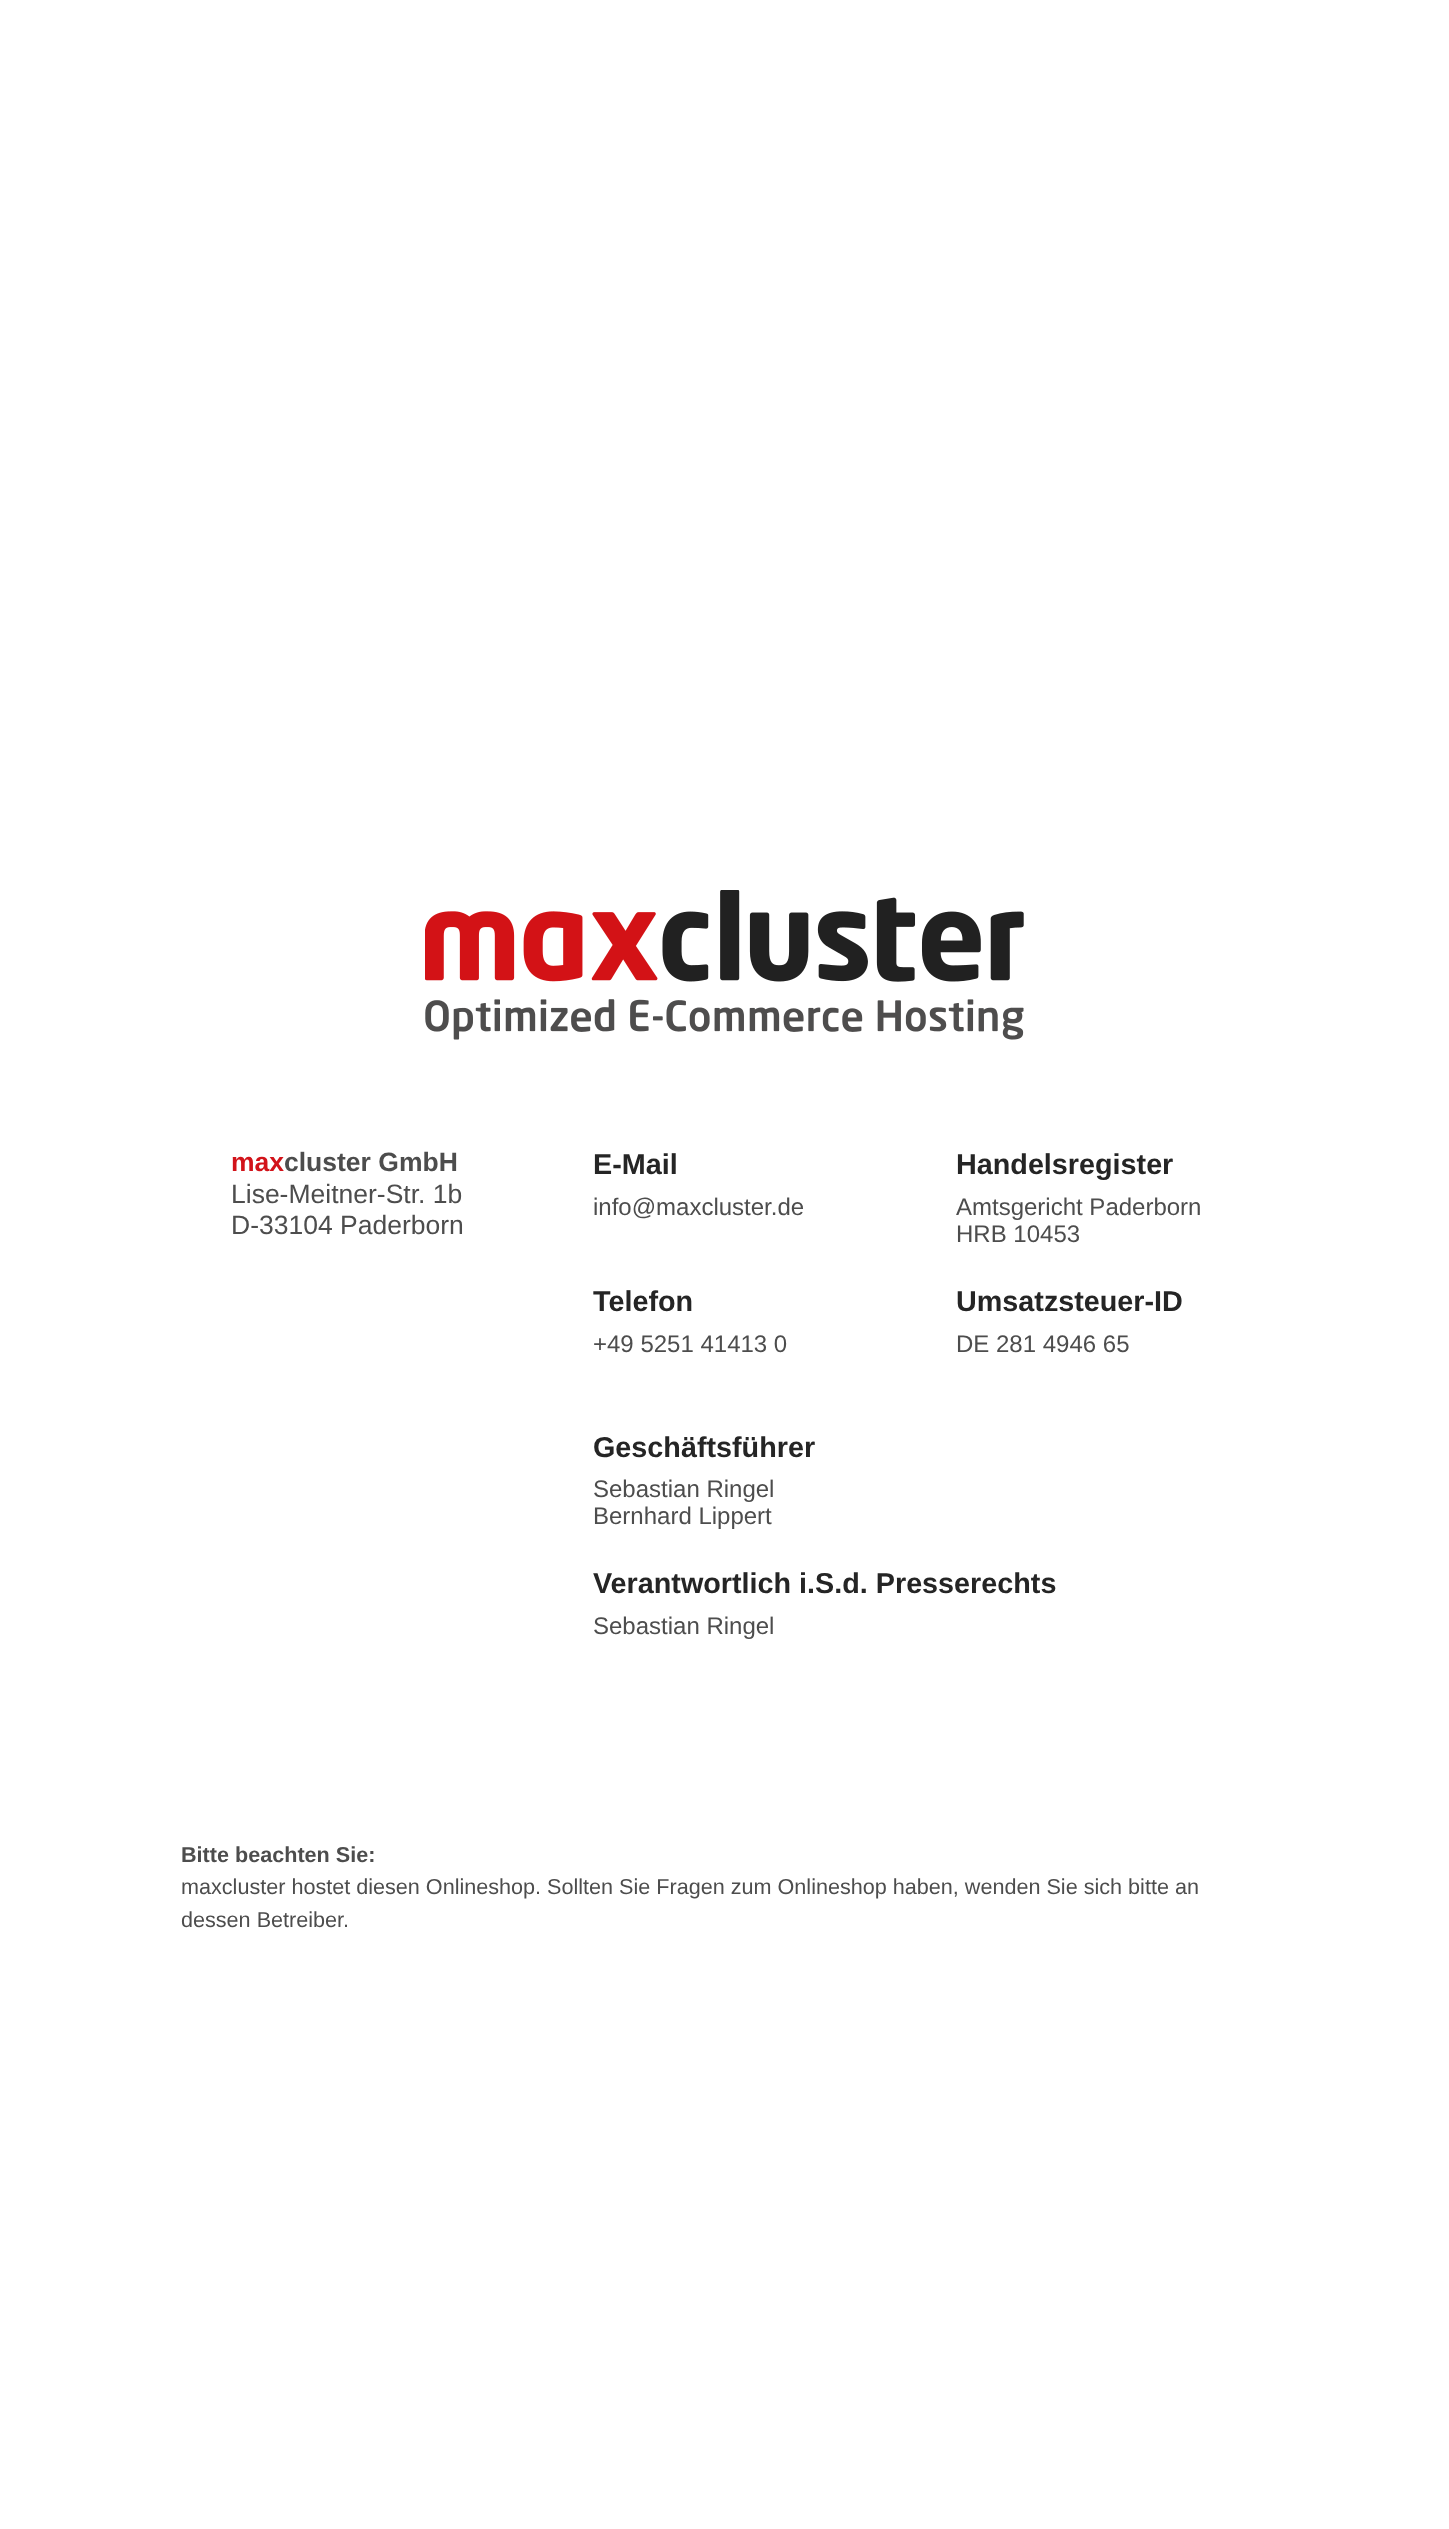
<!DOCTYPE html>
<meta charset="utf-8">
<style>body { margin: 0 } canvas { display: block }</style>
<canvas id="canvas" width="1449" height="2529"></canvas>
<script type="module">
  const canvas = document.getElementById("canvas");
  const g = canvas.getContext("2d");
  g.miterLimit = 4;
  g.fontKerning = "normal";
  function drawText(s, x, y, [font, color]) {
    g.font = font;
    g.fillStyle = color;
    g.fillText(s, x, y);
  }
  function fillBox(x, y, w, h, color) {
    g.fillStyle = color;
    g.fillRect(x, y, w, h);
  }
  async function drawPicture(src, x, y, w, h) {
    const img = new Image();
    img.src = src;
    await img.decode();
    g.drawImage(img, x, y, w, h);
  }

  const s1 = ["bold 26.5px Liberation Sans", "#D2131A"];
  const s2 = ["bold 26.5px Liberation Sans", "#4D4D4D"];
  const s3 = ["26.5px Liberation Sans", "#4D4D4D"];
  const s4 = ["bold 28.75px Liberation Sans", "#252525"];
  const s5 = ["24px Liberation Sans", "#4D4D4D"];
  const s6 = ["bold 21.6px Liberation Sans", "#4D4D4D"];
  const s7 = ["21.6px Liberation Sans", "#4D4D4D"];

  fillBox(0, 0, 1449, 2529, "#FFFFFF");
  await drawPicture("pic1.png", 425, 890, 599, 150);
  drawText("max", 231, 1171, s1);
  drawText("cluster GmbH", 284, 1171, s2);
  drawText("Lise-Meitner-Str. 1b", 231, 1203, s3);
  drawText("D-33104 Paderborn", 231, 1234, s3);
  drawText("E-Mail", 593, 1174, s4);
  drawText("info@maxcluster.de", 593, 1215, s5);
  drawText("Telefon", 593, 1311, s4);
  drawText("+49 5251 41413 0", 593, 1352, s5);
  drawText("Handelsregister", 956, 1174, s4);
  drawText("Amtsgericht Paderborn", 956, 1215, s5);
  drawText("HRB 10453", 956, 1242, s5);
  drawText("Umsatzsteuer-ID", 956, 1311, s4);
  drawText("DE 281 4946 65", 956, 1352, s5);
  drawText("Geschäftsführer", 593, 1457, s4);
  drawText("Sebastian Ringel", 593, 1497, s5);
  drawText("Bernhard Lippert", 593, 1524, s5);
  drawText("Verantwortlich i.S.d. Presserechts", 593, 1593, s4);
  drawText("Sebastian Ringel", 593, 1634, s5);
  drawText("Bitte beachten Sie:", 181, 1862, s6);
  drawText("maxcluster hostet diesen Onlineshop. Sollten Sie Fragen zum Onlineshop haben, wenden Sie sich bitte an", 181, 1894, s7);
  drawText("dessen Betreiber.", 181, 1927, s7);
</script>
